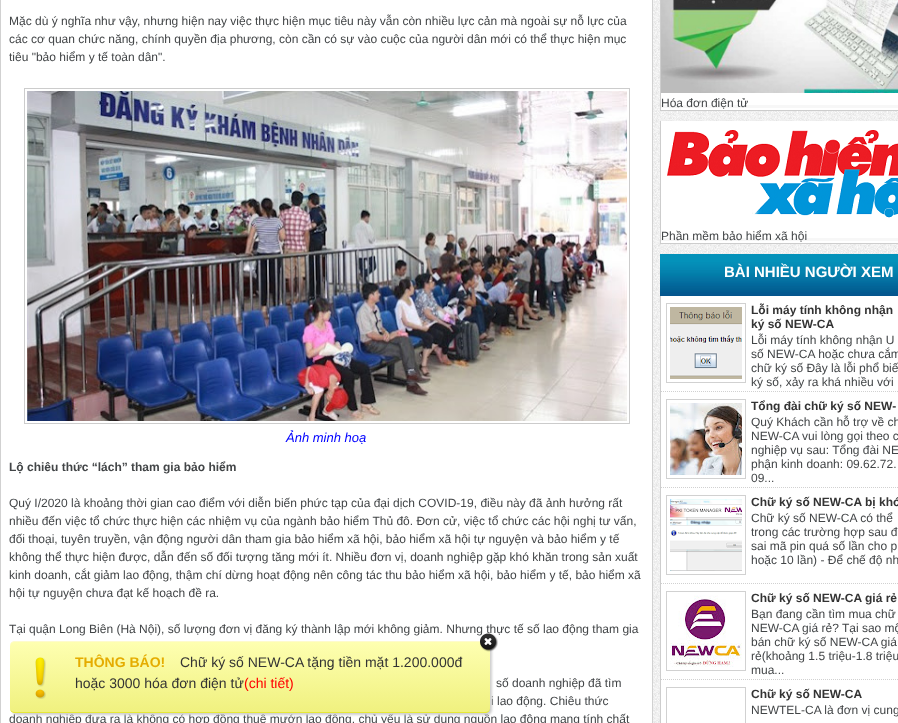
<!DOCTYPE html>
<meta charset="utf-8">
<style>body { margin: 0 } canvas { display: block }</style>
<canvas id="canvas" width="898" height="723"></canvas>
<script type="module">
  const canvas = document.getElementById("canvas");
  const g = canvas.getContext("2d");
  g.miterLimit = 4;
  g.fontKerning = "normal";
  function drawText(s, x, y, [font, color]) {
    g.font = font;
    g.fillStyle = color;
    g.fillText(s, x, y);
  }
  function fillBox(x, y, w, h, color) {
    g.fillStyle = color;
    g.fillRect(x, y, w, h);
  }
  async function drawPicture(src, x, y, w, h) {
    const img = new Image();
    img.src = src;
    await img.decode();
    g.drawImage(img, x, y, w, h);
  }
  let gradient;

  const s1 = ["12px Liberation Sans", "#424547"];
  const s2 = ["italic 13px Liberation Sans", "#0000FF"];
  const s3 = ["bold 12px Liberation Sans", "#424547"];
  const s4 = ["bold 15px Liberation Sans", "#FFFFFF"];
  const s5 = ["bold 12px Liberation Sans", "#333333"];
  const s6 = ["bold 14px Liberation Sans", "#E5AC00"];
  const s7 = ["14px Liberation Sans", "#333333"];
  const s8 = ["14px Liberation Sans", "#FF0000"];

  fillBox(0, 0, 898, 723, "#FFFFFF");
  await drawPicture("pic1.png", 653, 0, 245, 723);
  g.strokeStyle = "#D1D1D1";
  g.strokeRect(0.5, -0.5, 652, 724);
  drawText("Mặc dù ý nghĩa như vậy, nhưng hiện nay việc thực hiện mục tiêu này vẫn còn nhiều lực cản mà ngoài sự nỗ lực của", 9, 25, s1);
  drawText("các cơ quan chức năng, chính quyền địa phương, còn cần có sự vào cuộc của người dân mới có thể thực hiện mục", 9, 43, s1);
  drawText("tiêu \"bảo hiểm y tế toàn dân\".", 9, 61, s1);
  g.strokeStyle = "#CCCCCC";
  g.strokeRect(24.5, 88.5, 605, 335);
  await drawPicture("pic2.png", 27, 91, 600, 330);
  drawText("Ảnh minh hoạ", 286, 442, s2);
  drawText("Lộ chiêu thức “lách” tham gia bảo hiểm", 9, 471, s3);
  drawText("Quý I/2020 là khoảng thời gian cao điểm với diễn biến phức tạp của đại dịch COVID-19, điều này đã ảnh hưởng rất", 9, 507, s1);
  drawText("nhiều đến việc tổ chức thực hiện các nhiệm vụ của ngành bảo hiểm Thủ đô. Đơn cử, việc tổ chức các hội nghị tư vấn,", 9, 525, s1);
  drawText("đối thoại, tuyên truyền, vận động người dân tham gia bảo hiểm xã hội, bảo hiểm xã hội tự nguyện và bảo hiểm y tế", 9, 543, s1);
  drawText("không thể thực hiện được, dẫn đến số đối tượng tăng mới ít. Nhiều đơn vị, doanh nghiệp gặp khó khăn trong sản xuất", 9, 561, s1);
  drawText("kinh doanh, cắt giảm lao động, thậm chí dừng hoạt động nên công tác thu bảo hiểm xã hội, bảo hiểm y tế, bảo hiểm xã", 9, 579, s1);
  drawText("hội tự nguyện chưa đạt kế hoạch đề ra.", 9, 597, s1);
  drawText("Tại quận Long Biên (Hà Nội), số lượng đơn vị đăng ký thành lập mới không giảm. Nhưng thực tế số lao động tham gia", 9, 633, s1);
  drawText("số doanh nghiệp đã tìm", 496, 687, s1);
  drawText("i lao động. Chiêu thức", 491, 705, s1);
  drawText("doanh nghiệp đưa ra là không có hợp đồng thuê mướn lao động, chủ yếu là sử dụng nguồn lao động mang tính chất", 9, 723, s1);
  fillBox(661, 93, 237, 17, "#FFFFFF");
  fillBox(660, 105, 238, 3, "#F7F7F7");
  fillBox(660, 110, 238, 1, "#CDCDCD");
  fillBox(660, 0, 1, 111, "#CDCDCD");
  await drawPicture("pic3.png", 661, 0, 237, 93);
  drawText("Hóa đơn điện tử", 661, 107, s1);
  fillBox(661, 121, 237, 122, "#FFFFFF");
  fillBox(660, 238, 238, 3, "#F7F7F7");
  fillBox(660, 243, 238, 1, "#CDCDCD");
  fillBox(660, 121, 1, 123, "#CDCDCD");
  await drawPicture("pic4.png", 667, 130, 231, 88);
  drawText("Phần mềm bảo hiểm xã hội", 661, 240, s1);
  await drawPicture("pic5.png", 660, 254, 238, 42);
  drawText("BÀI NHIỀU NGƯỜI XEM", 724, 277, s4);
  fillBox(661, 296, 237, 427, "#FFFFFF");
  fillBox(660, 296, 1, 427, "#CDCDCD");
  g.beginPath();
  g.moveTo(661, 391.5);
  g.lineTo(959, 391.5);
  g.strokeStyle = "#D1D1D1";
  g.setLineDash([1, 1]);
  g.stroke();
  g.setLineDash([]);
  g.strokeRect(666.5, 303.5, 79, 79);
  await drawPicture("pic6.png", 670, 307, 72, 72);
  drawText("Lỗi máy tính không nhận", 751, 314, s5);
  drawText("ký số NEW-CA", 751, 328, s5);
  drawText("Lỗi máy tính không nhận U", 751, 344, s1);
  drawText("số NEW-CA hoặc chưa cắm", 751, 358, s1);
  drawText("chữ ký số Đây là lỗi phổ biế", 751, 372, s1);
  drawText("ký số, xảy ra khá nhiều với", 751, 386, s1);
  g.beginPath();
  g.moveTo(661, 487.5);
  g.lineTo(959, 487.5);
  g.setLineDash([1, 1]);
  g.stroke();
  g.setLineDash([]);
  g.strokeRect(666.5, 399.5, 79, 79);
  await drawPicture("pic7.png", 670, 403, 72, 72);
  drawText("Tổng đài chữ ký số NEW-", 751, 410, s5);
  drawText("Quý Khách cần hỗ trợ về ch", 751, 426, s1);
  drawText("NEW-CA vui lòng gọi theo c", 751, 440, s1);
  drawText("nghiệp vụ sau: Tổng đài NE", 751, 454, s1);
  drawText("phận kinh doanh: 09.62.72.", 751, 468, s1);
  drawText("09...", 751, 482, s1);
  g.beginPath();
  g.moveTo(661, 583.5);
  g.lineTo(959, 583.5);
  g.setLineDash([1, 1]);
  g.stroke();
  g.setLineDash([]);
  g.strokeRect(666.5, 495.5, 79, 79);
  await drawPicture("pic8.png", 670, 499, 72, 72);
  drawText("Chữ ký số NEW-CA bị khó", 751, 506, s5);
  drawText("Chữ ký số NEW-CA có thể", 751, 522, s1);
  drawText("trong các trường hợp sau đ", 751, 536, s1);
  drawText("sai mã pin quá số lần cho p", 751, 550, s1);
  drawText("hoặc 10 lần) - Để chế độ nh", 751, 564, s1);
  g.beginPath();
  g.moveTo(661, 679.5);
  g.lineTo(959, 679.5);
  g.setLineDash([1, 1]);
  g.stroke();
  g.setLineDash([]);
  g.strokeRect(666.5, 591.5, 79, 79);
  await drawPicture("pic9.png", 670, 595, 72, 72);
  drawText("Chữ ký số NEW-CA giá rẻ", 751, 602, s5);
  drawText("Bạn đang cần tìm mua chữ", 751, 618, s1);
  drawText("NEW-CA giá rẻ? Tại sao mộ", 751, 632, s1);
  drawText("bán chữ ký số NEW-CA giá", 751, 646, s1);
  drawText("rẻ(khoảng 1.5 triệu-1.8 triệu", 751, 660, s1);
  drawText("mua...", 751, 674, s1);
  g.strokeRect(666.5, 687.5, 79, 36);
  drawText("Chữ ký số NEW-CA", 751, 698, s5);
  drawText("NEWTEL-CA là đơn vị cung", 751, 714, s1);
  g.fillStyle = "#CFCFCF";
  g.filter = "blur(1px)";
  g.beginPath();
  g.roundRect(12, 643, 480, 72, 5);
  g.fill();
  g.filter = "none";
  g.save();
  g.beginPath();
  g.roundRect(10, 641, 480, 72, 5);
  g.clip();
  gradient = g.createLinearGradient(10, 642, 10, 712);
  gradient.addColorStop(0, "#FEFFB1");
  gradient.addColorStop(1, "#F0F17F");
  g.fillStyle = gradient;
  g.fillRect(10, 642, 480, 70);
  g.restore();
  g.fillStyle = "#FEFBCD";
  g.beginPath();
  g.moveTo(15, 641);
  g.bezierCurveTo(12, 641, 10, 643, 10, 646);
  g.bezierCurveTo(10, 644, 12, 642, 15, 642);
  g.lineTo(485, 642);
  g.bezierCurveTo(488, 642, 490, 644, 490, 646);
  g.bezierCurveTo(490, 643, 488, 641, 485, 641);
  g.closePath();
  g.fill();
  g.fillStyle = "#E6E837";
  g.beginPath();
  g.moveTo(485, 713);
  g.bezierCurveTo(488, 713, 490, 711, 490, 708);
  g.bezierCurveTo(490, 710, 488, 712, 485, 712);
  g.lineTo(15, 712);
  g.bezierCurveTo(12, 712, 10, 710, 10, 708);
  g.bezierCurveTo(10, 711, 12, 713, 15, 713);
  g.closePath();
  g.fill();
  await drawPicture("pic10.png", 480, 633, 18, 19);
  await drawPicture("pic11.png", 35, 657, 11, 42);
  drawText("THÔNG BÁO!", 75, 667, s6);
  drawText("Chữ ký số NEW-CA tặng tiền mặt 1.200.000đ", 180, 667, s7);
  drawText("hoặc 3000 hóa đơn điện tử", 75, 688, s7);
  drawText("(chi tiết)", 244, 688, s8);
</script>
